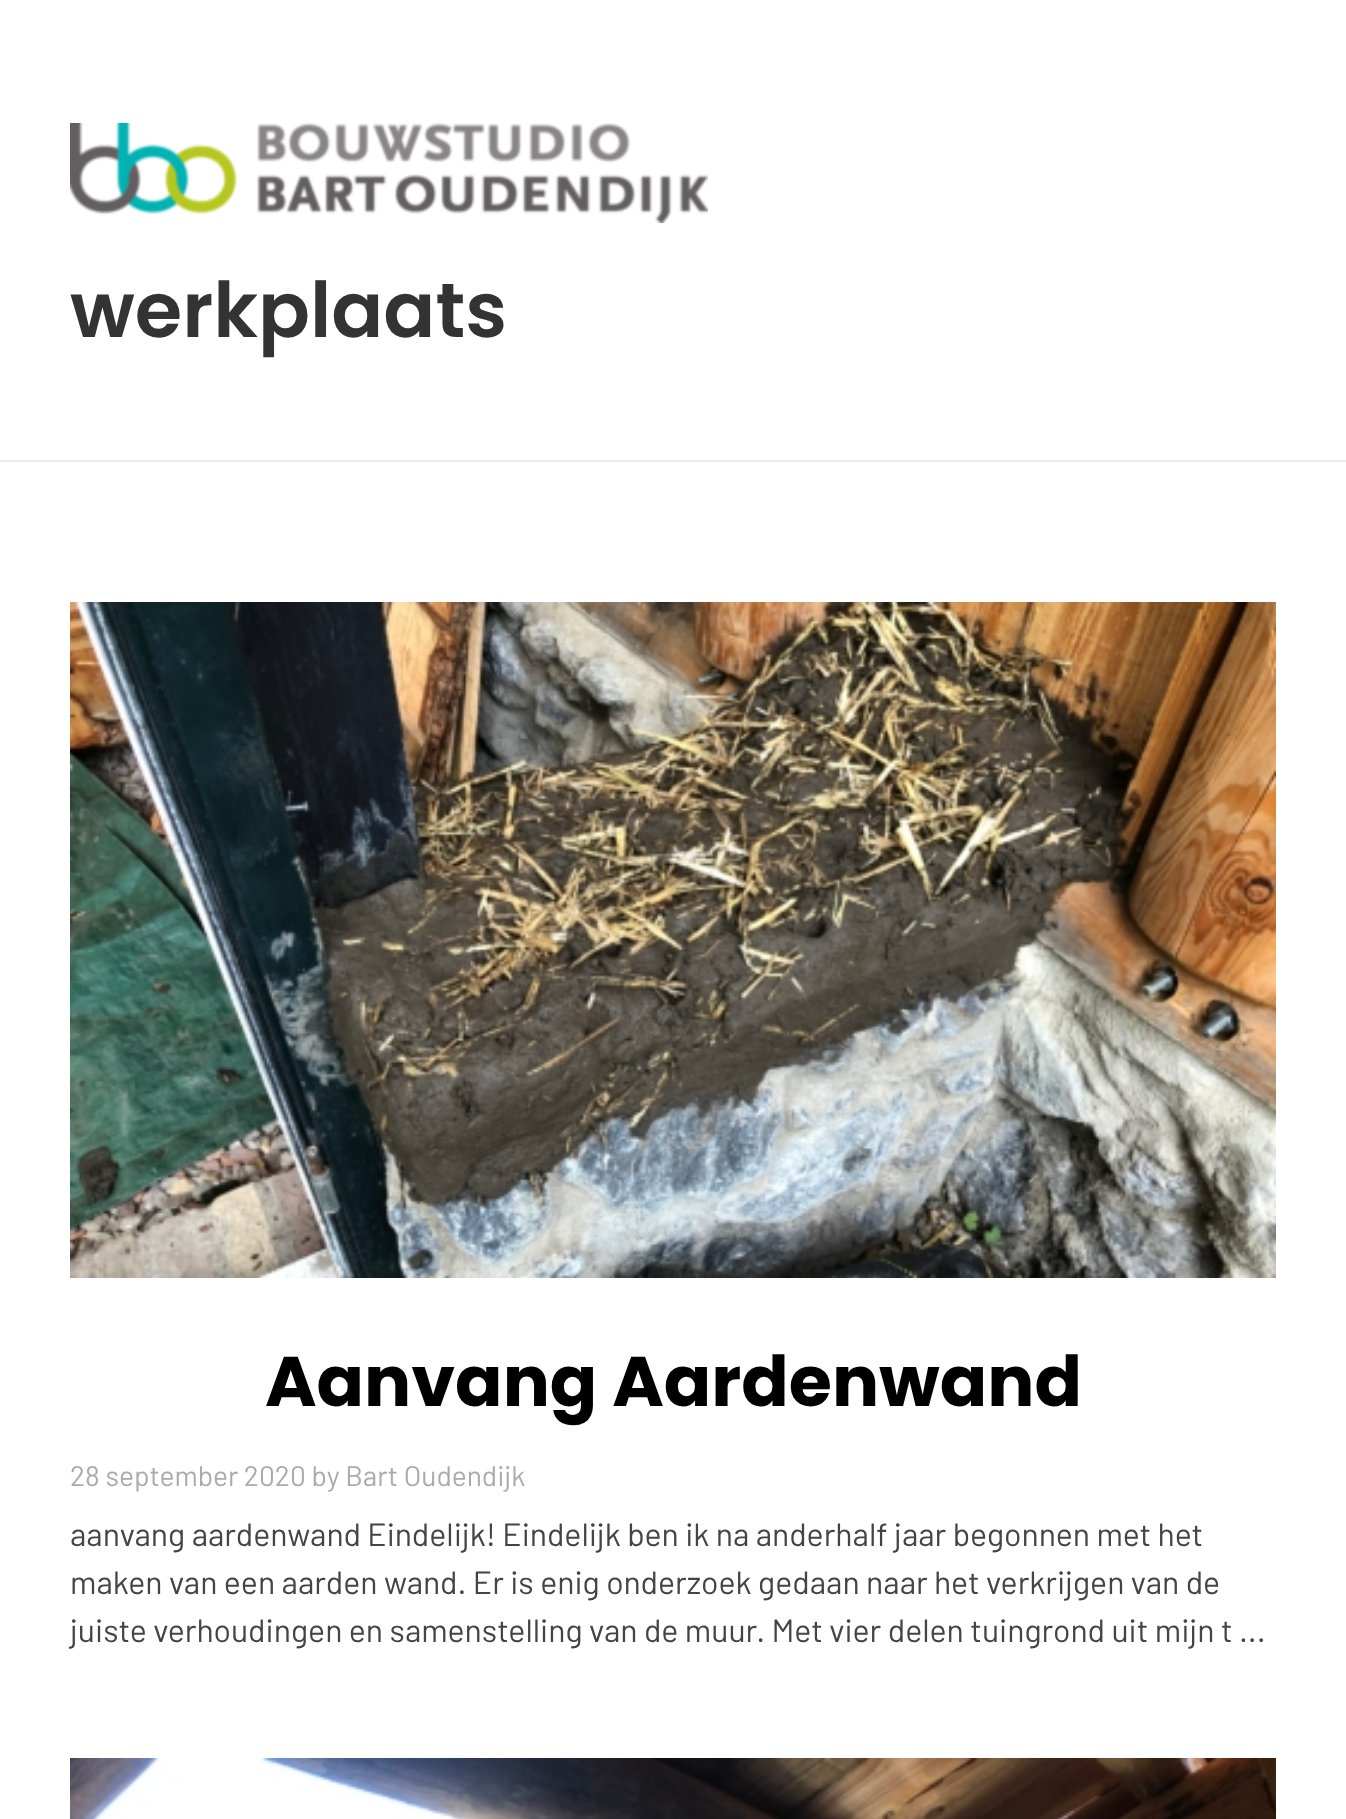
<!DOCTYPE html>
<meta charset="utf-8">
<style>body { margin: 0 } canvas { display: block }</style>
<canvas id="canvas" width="1346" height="1819"></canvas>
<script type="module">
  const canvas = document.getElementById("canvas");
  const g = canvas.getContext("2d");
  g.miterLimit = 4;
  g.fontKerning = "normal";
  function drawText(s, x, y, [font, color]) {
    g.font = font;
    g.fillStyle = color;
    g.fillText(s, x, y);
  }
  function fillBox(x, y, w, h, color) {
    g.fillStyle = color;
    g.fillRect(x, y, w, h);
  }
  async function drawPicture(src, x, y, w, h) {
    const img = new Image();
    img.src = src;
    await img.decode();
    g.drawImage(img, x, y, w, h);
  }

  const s1 = ["600 76.75px Poppins", "#333333"];
  const s2 = ["bold 70px Poppins", "#000000"];
  const s3 = ["28.2px Barlow", "#AAAAAA"];
  const s4 = ["32px Barlow", "#444444"];

  fillBox(0, 0, 1346, 1819, "#FFFFFF");
  await drawPicture("pic1.png", 70, 123, 638, 100);
  fillBox(0, 460, 1346, 2, "#EAEAEA");
  drawText("werkplaats", 70, 337, s1);
  await drawPicture("pic2.png", 70, 602, 1206, 676);
  drawText("Aanvang Aardenwand", 265, 1406, s2);
  drawText("28 september 2020 by Bart Oudendijk", 70, 1486, s3);
  drawText("aanvang aardenwand Eindelijk! Eindelijk ben ik na anderhalf jaar begonnen met het", 70, 1546, s4);
  drawText("maken van een aarden wand. Er is enig onderzoek gedaan naar het verkrijgen van de", 70, 1594, s4);
  drawText("juiste verhoudingen en samenstelling van de muur. Met vier delen tuingrond uit mijn t ...", 70, 1642, s4);
  await drawPicture("pic3.png", 70, 1758, 1206, 61);
</script>
